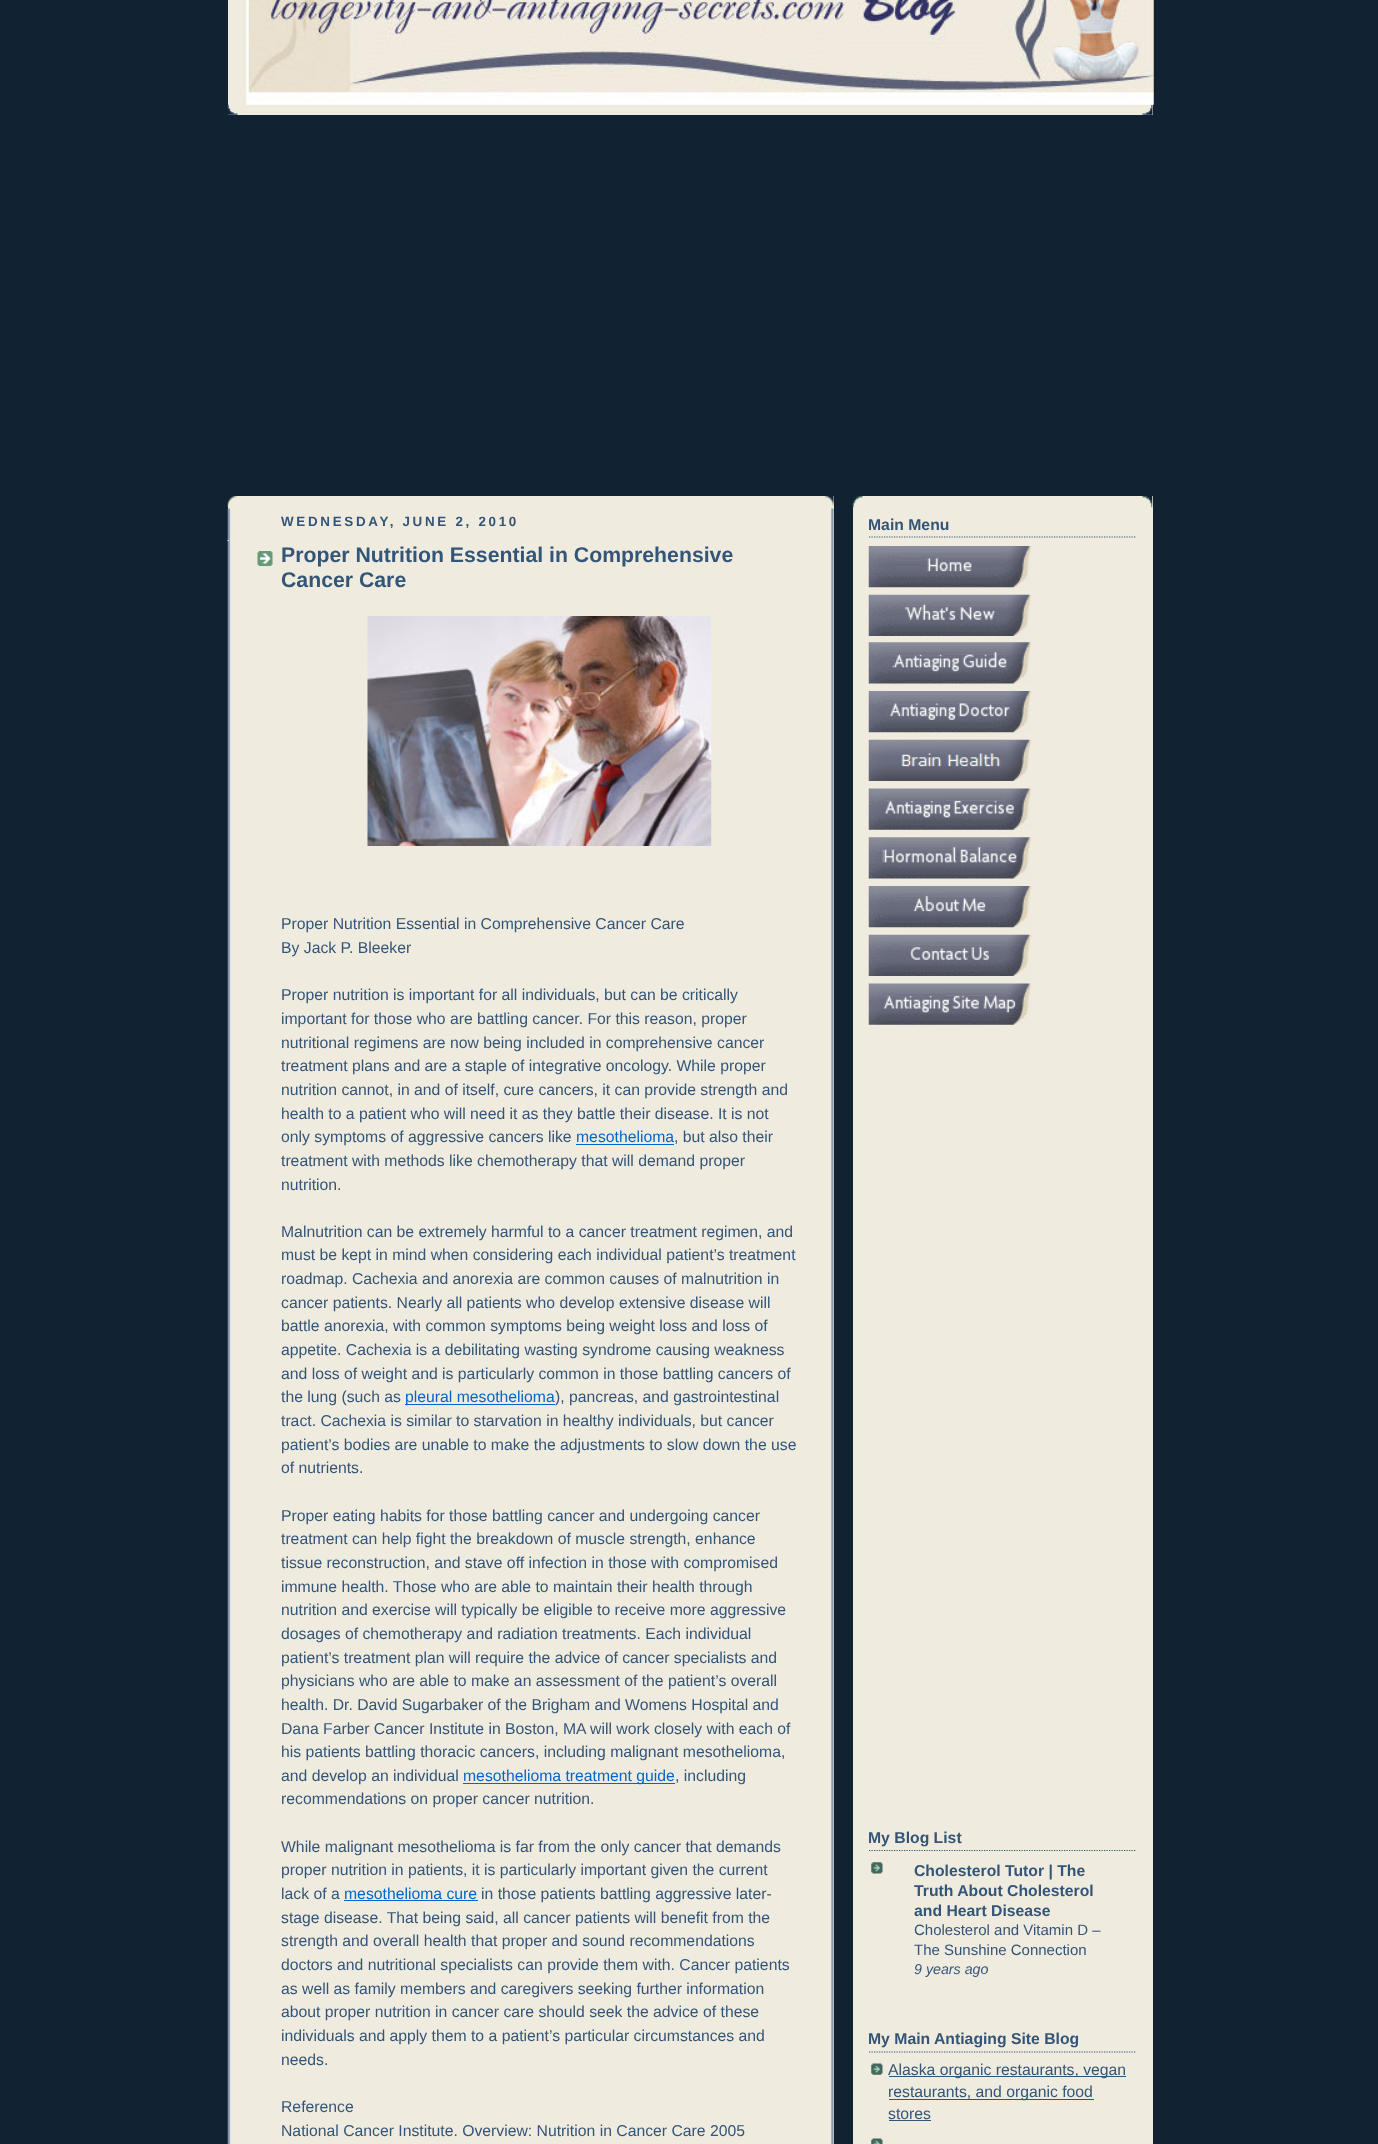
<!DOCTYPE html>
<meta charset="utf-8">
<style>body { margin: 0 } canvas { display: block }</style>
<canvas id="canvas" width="1378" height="2144"></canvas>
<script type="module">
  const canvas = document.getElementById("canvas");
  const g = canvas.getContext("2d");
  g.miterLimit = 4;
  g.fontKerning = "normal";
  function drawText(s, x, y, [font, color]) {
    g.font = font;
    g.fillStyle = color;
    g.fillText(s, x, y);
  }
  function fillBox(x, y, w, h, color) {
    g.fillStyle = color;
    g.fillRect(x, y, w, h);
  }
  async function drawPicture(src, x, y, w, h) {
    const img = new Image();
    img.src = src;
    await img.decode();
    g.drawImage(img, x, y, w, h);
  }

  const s1 = ["bold 13.4px Liberation Sans", "#335577"];
  const s2 = ["bold 21.25px Liberation Sans", "#335577"];
  const s3 = ["15.75px Liberation Sans", "#335577"];
  const s4 = ["15.75px Liberation Sans", "#0066CC"];
  const s5 = ["bold 15.75px Liberation Sans", "#335577"];
  const s6 = ["15px Liberation Sans", "#335577"];
  const s7 = ["italic 14.25px Liberation Sans", "#335577"];

  fillBox(0, 0, 1378, 2144, "#112233");
  fillBox(228, 0, 925, 115, "#F0EBDF");
  await drawPicture("pic1.png", 227, 104, 926, 11);
  await drawPicture("pic2.png", 246, 0, 908, 105);
  fillBox(228, 496, 606, 1648, "#F0EBDF");
  await drawPicture("pic3.png", 227, 496, 607, 11);
  await drawPicture("pic4.png", 227, 508, 607, 1636);
  g.letterSpacing = "2.7px";
  drawText("WEDNESDAY, JUNE 2, 2010", 281, 526, s1);
  g.beginPath();
  g.moveTo(227.5, 540.5);
  g.lineTo(832.5, 540.5);
  g.strokeStyle = "#F0EBDF";
  g.lineWidth = 1.2;
  g.setLineDash([1.25, 1.25]);
  g.stroke();
  await drawPicture("pic5.png", 257, 551, 16, 15);
  g.letterSpacing = "0px";
  drawText("Proper Nutrition Essential in Comprehensive", 281, 562, s2);
  drawText("Cancer Care", 281, 587, s2);
  await drawPicture("pic6.png", 367, 616, 345, 230);
  drawText("Proper Nutrition Essential in Comprehensive Cancer Care", 281, 929, s3);
  drawText("By Jack P. Bleeker", 281, 953, s3);
  drawText("Proper nutrition is important for all individuals, but can be critically", 281, 1000, s3);
  drawText("important for those who are battling cancer. For this reason, proper", 281, 1024, s3);
  drawText("nutritional regimens are now being included in comprehensive cancer", 281, 1048, s3);
  drawText("treatment plans and are a staple of integrative oncology. While proper", 281, 1071, s3);
  drawText("nutrition cannot, in and of itself, cure cancers, it can provide strength and", 281, 1095, s3);
  drawText("health to a patient who will need it as they battle their disease. It is not", 281, 1119, s3);
  drawText("only symptoms of aggressive cancers like", 281, 1142, s3);
  drawText("mesothelioma", 576, 1142, s4);
  fillBox(576, 1144, 98, 1, "#0066CC");
  drawText(", but also their", 674, 1142, s3);
  drawText("treatment with methods like chemotherapy that will demand proper", 281, 1166, s3);
  drawText("nutrition.", 281, 1190, s3);
  drawText("Malnutrition can be extremely harmful to a cancer treatment regimen, and", 281, 1237, s3);
  drawText("must be kept in mind when considering each individual patient’s treatment", 281, 1260, s3);
  drawText("roadmap. Cachexia and anorexia are common causes of malnutrition in", 281, 1284, s3);
  drawText("cancer patients. Nearly all patients who develop extensive disease will", 281, 1308, s3);
  drawText("battle anorexia, with common symptoms being weight loss and loss of", 281, 1331, s3);
  drawText("appetite. Cachexia is a debilitating wasting syndrome causing weakness", 281, 1355, s3);
  drawText("and loss of weight and is particularly common in those battling cancers of", 281, 1379, s3);
  drawText("the lung (such as", 281, 1402, s3);
  fillBox(405, 1404, 150, 1, "#0066CC");
  drawText("pleural mesothelioma", 405, 1402, s4);
  drawText("), pancreas, and gastrointestinal", 555, 1402, s3);
  drawText("tract. Cachexia is similar to starvation in healthy individuals, but cancer", 281, 1426, s3);
  drawText("patient’s bodies are unable to make the adjustments to slow down the use", 281, 1450, s3);
  drawText("of nutrients.", 281, 1473, s3);
  drawText("Proper eating habits for those battling cancer and undergoing cancer", 281, 1521, s3);
  drawText("treatment can help fight the breakdown of muscle strength, enhance", 281, 1544, s3);
  drawText("tissue reconstruction, and stave off infection in those with compromised", 281, 1568, s3);
  drawText("immune health. Those who are able to maintain their health through", 281, 1592, s3);
  drawText("nutrition and exercise will typically be eligible to receive more aggressive", 281, 1615, s3);
  drawText("dosages of chemotherapy and radiation treatments. Each individual", 281, 1639, s3);
  drawText("patient’s treatment plan will require the advice of cancer specialists and", 281, 1663, s3);
  drawText("physicians who are able to make an assessment of the patient’s overall", 281, 1686, s3);
  drawText("health. Dr. David Sugarbaker of the Brigham and Womens Hospital and", 281, 1710, s3);
  drawText("Dana Farber Cancer Institute in Boston, MA will work closely with each of", 281, 1734, s3);
  drawText("his patients battling thoracic cancers, including malignant mesothelioma,", 281, 1757, s3);
  drawText("and develop an individual", 281, 1781, s3);
  fillBox(463, 1783, 212, 1, "#0066CC");
  drawText("mesothelioma treatment guide", 463, 1781, s4);
  drawText(", including", 675, 1781, s3);
  drawText("recommendations on proper cancer nutrition.", 281, 1804, s3);
  drawText("While malignant mesothelioma is far from the only cancer that demands", 281, 1852, s3);
  drawText("proper nutrition in patients, it is particularly important given the current", 281, 1875, s3);
  drawText("lack of a", 281, 1899, s3);
  drawText("mesothelioma cure", 344, 1899, s4);
  fillBox(344, 1900, 134, 1, "#0066CC");
  drawText("in those patients battling aggressive later-", 481, 1899, s3);
  drawText("stage disease. That being said, all cancer patients will benefit from the", 281, 1923, s3);
  drawText("strength and overall health that proper and sound recommendations", 281, 1946, s3);
  drawText("doctors and nutritional specialists can provide them with. Cancer patients", 281, 1970, s3);
  drawText("as well as family members and caregivers seeking further information", 281, 1994, s3);
  drawText("about proper nutrition in cancer care should seek the advice of these", 281, 2017, s3);
  drawText("individuals and apply them to a patient’s particular circumstances and", 281, 2041, s3);
  drawText("needs.", 281, 2065, s3);
  drawText("Reference", 281, 2112, s3);
  drawText("National Cancer Institute. Overview: Nutrition in Cancer Care 2005", 281, 2136, s3);
  fillBox(853, 496, 300, 1648, "#F0EBDF");
  await drawPicture("pic7.png", 852, 496, 301, 12);
  g.beginPath();
  g.moveTo(869, 537);
  g.lineTo(1136, 537);
  g.strokeStyle = "#335577";
  g.stroke();
  drawText("Main Menu", 868, 530, s5);
  await drawPicture("pic8.png", 868, 546, 164, 42);
  await drawPicture("pic9.png", 868, 594, 164, 42);
  await drawPicture("pic10.png", 868, 642, 164, 42);
  await drawPicture("pic11.png", 868, 691, 164, 42);
  await drawPicture("pic12.png", 868, 739, 164, 42);
  await drawPicture("pic13.png", 868, 788, 164, 42);
  await drawPicture("pic14.png", 868, 837, 164, 42);
  await drawPicture("pic15.png", 868, 886, 164, 42);
  await drawPicture("pic16.png", 868, 934, 164, 42);
  await drawPicture("pic17.png", 868, 983, 164, 42);
  g.beginPath();
  g.moveTo(869, 1850.5);
  g.lineTo(1136, 1850.5);
  g.stroke();
  drawText("My Blog List", 868, 1843, s5);
  await drawPicture("pic18.png", 871, 1862, 12, 12);
  drawText("Cholesterol Tutor | The", 914, 1876, s5);
  drawText("Truth About Cholesterol", 914, 1896, s5);
  drawText("and Heart Disease", 914, 1916, s5);
  drawText("Cholesterol and Vitamin D –", 914, 1935, s6);
  drawText("The Sunshine Connection", 914, 1955, s6);
  drawText("9 years ago", 914, 1974, s7);
  g.beginPath();
  g.moveTo(869, 2052);
  g.lineTo(1136, 2052);
  g.stroke();
  drawText("My Main", 868, 2044, s5);
  drawText("Antiaging Site Blog", 934, 2044, s5);
  await drawPicture("pic19.png", 871, 2063, 12, 12);
  fillBox(889, 2076, 237, 1, "#335577");
  drawText("Alaska organic restaurants, vegan", 888, 2075, s3);
  fillBox(889, 2099, 205, 1, "#335577");
  drawText("restaurants, and organic food", 888, 2097, s3);
  drawText("stores", 888, 2119, s3);
  fillBox(889, 2120, 42, 1, "#335577");
  await drawPicture("pic20.png", 871, 2138, 12, 6);
</script>
